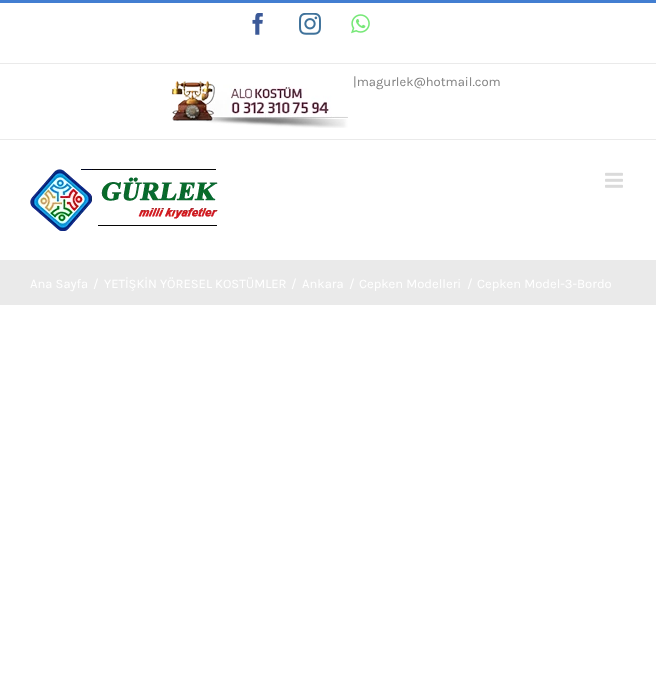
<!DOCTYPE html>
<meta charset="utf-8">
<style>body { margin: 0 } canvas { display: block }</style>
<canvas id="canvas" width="656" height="686"></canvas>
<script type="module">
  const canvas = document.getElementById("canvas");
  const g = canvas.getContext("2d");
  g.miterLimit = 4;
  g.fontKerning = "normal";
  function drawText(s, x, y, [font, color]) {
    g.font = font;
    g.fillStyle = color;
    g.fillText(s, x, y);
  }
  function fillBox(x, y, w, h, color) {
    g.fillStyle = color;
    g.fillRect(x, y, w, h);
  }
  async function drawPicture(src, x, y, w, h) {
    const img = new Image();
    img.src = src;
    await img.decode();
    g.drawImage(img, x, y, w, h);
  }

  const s1 = ["13px Karla", "#808080"];
  const s2 = ["13px Karla", "#FFFFFF"];

  fillBox(0, 0, 656, 686, "#FFFFFF");
  fillBox(0, 0, 656, 3, "#427ED1");
  fillBox(0, 139, 656, 1, "#EAEAEA");
  fillBox(0, 63, 656, 1, "#EAEAEA");
  await drawPicture("pic1.png", 252, 13, 11, 22);
  await drawPicture("pic2.png", 299, 13, 22, 22);
  await drawPicture("pic3.png", 351, 14, 19, 20);
  await drawPicture("pic4.png", 171, 81, 177, 47);
  drawText("|magurlek@hotmail.com", 353, 86, s1);
  await drawPicture("pic5.png", 30, 169, 188, 62);
  await drawPicture("pic6.png", 605, 172, 18, 16);
  fillBox(0, 260, 656, 45, "#EAEAEA");
  drawText("Ana Sayfa", 30, 288, s2);
  drawText("/", 93, 288, s2);
  drawText("YETİŞKİN YÖRESEL KOSTÜMLER", 104, 288, s2);
  drawText("/", 291, 288, s2);
  drawText("Ankara", 302, 288, s2);
  drawText("/", 349, 288, s2);
  drawText("Cepken Modelleri", 359, 288, s2);
  drawText("/", 467, 288, s2);
  drawText("Cepken Model-3-Bordo", 477, 288, s2);
</script>
